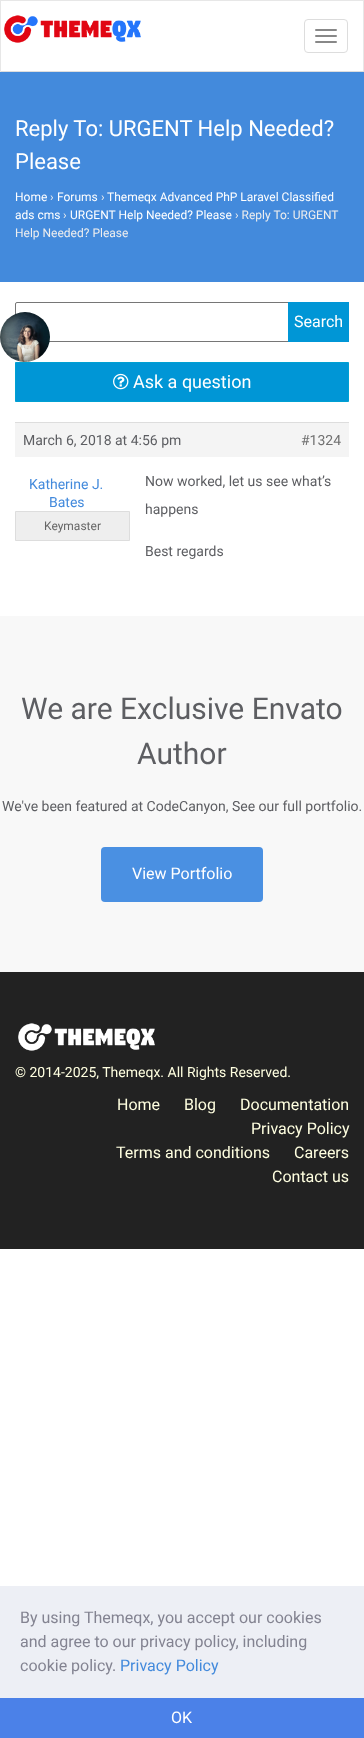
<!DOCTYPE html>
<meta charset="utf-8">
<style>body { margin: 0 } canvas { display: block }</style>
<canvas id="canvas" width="364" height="1738"></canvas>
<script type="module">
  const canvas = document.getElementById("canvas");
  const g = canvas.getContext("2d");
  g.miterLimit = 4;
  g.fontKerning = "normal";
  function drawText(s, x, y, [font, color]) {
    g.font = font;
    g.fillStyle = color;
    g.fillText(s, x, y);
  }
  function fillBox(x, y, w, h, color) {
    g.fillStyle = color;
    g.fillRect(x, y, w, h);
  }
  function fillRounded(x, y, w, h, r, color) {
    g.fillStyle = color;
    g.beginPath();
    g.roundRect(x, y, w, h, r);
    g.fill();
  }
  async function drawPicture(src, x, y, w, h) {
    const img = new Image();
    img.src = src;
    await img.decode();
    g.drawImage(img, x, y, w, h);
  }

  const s1 = ["22px Roboto", "#FFFFFF"];
  const s2 = ["12px Roboto", "#FFFFFF"];
  const s3 = ["12px Roboto", "#EEEEEE"];
  const s4 = ["16px Roboto", "#FFFFFF"];
  const s5 = ["18px Roboto", "#FFFFFF"];
  const s6 = ["14px Roboto", "#5D5E62"];
  const s7 = ["14px Roboto", "#707070"];
  const s8 = ["14px Roboto", "#438ADC"];
  const s9 = ["12px Roboto", "#666666"];
  const s10 = ["30px Roboto", "#5D5E62"];
  const s11 = ["14px Roboto", "#FFFFE0"];
  const s12 = ["16px Roboto", "#FFFFE0"];
  const s13 = ["16px Roboto", "#838391"];
  const s14 = ["16px Roboto", "#438ADC"];

  fillBox(0, 0, 364, 1738, "#FFFFFF");
  fillBox(0, 0, 364, 1, "#E7E7E7");
  fillBox(363, 0, 1, 72, "#E7E7E7");
  fillBox(0, 71, 364, 1, "#DDDDDD");
  fillBox(0, 0, 1, 72, "#E7E7E7");
  await drawPicture("pic1.png", 4, 15, 137, 28);
  g.beginPath();
  g.roundRect(304.5, 19.5, 43, 33, 3.5);
  g.strokeStyle = "#DDDDDD";
  g.stroke();
  fillRounded(315, 29, 22, 2, 1, "#888888");
  fillRounded(315, 35, 22, 2, 1, "#888888");
  fillRounded(315, 41, 22, 2, 1, "#888888");
  fillBox(0, 72, 364, 210, "#438ADC");
  drawText("Reply To: URGENT Help Needed?", 15, 136, s1);
  drawText("Please", 15, 169, s1);
  drawText("Home", 15, 201, s2);
  drawText("›", 50, 201, s3);
  drawText("Forums", 57, 201, s2);
  drawText("›", 101, 201, s3);
  drawText("Themeqx Advanced PhP Laravel Classified", 107, 201, s2);
  drawText("ads cms", 15, 219, s2);
  drawText("›", 63, 219, s3);
  drawText("URGENT Help Needed? Please", 70, 219, s2);
  drawText("› Reply To: URGENT", 235, 219, s3);
  drawText("Help Needed? Please", 15, 237, s3);
  g.beginPath();
  g.roundRect(15.5, 302.5, 333, 39, 1.5);
  g.strokeStyle = "#767676";
  g.stroke();
  fillBox(288, 302, 61, 40, "#0096D6");
  drawText("Search", 294, 327, s4);
  g.fillStyle = "#0096D6";
  g.beginPath();
  g.rect(15.5, 362.5, 333, 39);
  g.fill();
  g.strokeStyle = "#00A0D2";
  g.stroke();
  await drawPicture("pic2.png", 113, 373, 16, 17);
  drawText("Ask a question", 133, 388, s5);
  fillBox(15, 423, 334, 34, "#F4F4F4");
  fillBox(15, 422, 334, 1, "#DDDDDD");
  drawText("March 6, 2018 at 4:56 pm", 23, 445, s6);
  drawText("#1324", 301, 445, s7);
  await drawPicture("pic3.png", 0, 312, 50, 50);
  drawText("Katherine J.", 29, 489, s8);
  drawText("Bates", 49, 507, s8);
  g.fillStyle = "#EEEEEE";
  g.beginPath();
  g.rect(15.5, 511.5, 114, 29);
  g.fill();
  g.strokeStyle = "#DDDDDD";
  g.stroke();
  drawText("Keymaster", 44, 530, s9);
  drawText("Now worked, let us see what’s", 145, 486, s6);
  drawText("happens", 145, 514, s6);
  drawText("Best regards", 145, 556, s6);
  fillBox(0, 616, 364, 356, "#F8F8F8");
  drawText("We are Exclusive Envato", 21, 719, s10);
  drawText("Author", 137, 764, s10);
  drawText("We've been featured at CodeCanyon, See our full portfolio.", 2, 811, s6);
  fillRounded(101, 847, 162, 55, 4, "#4A90E2");
  drawText("View Portfolio", 132, 879, s4);
  fillBox(0, 972, 364, 277, "#222222");
  await drawPicture("pic4.png", 18, 1023, 137, 28);
  drawText("© 2014-2025, Themeqx. All Rights Reserved.", 15, 1077, s11);
  drawText("Home", 117, 1110, s12);
  drawText("Blog", 184, 1110, s12);
  drawText("Documentation", 240, 1110, s12);
  drawText("Privacy Policy", 251, 1134, s12);
  drawText("Terms and conditions", 116, 1158, s12);
  drawText("Careers", 294, 1158, s12);
  drawText("Contact us", 272, 1182, s12);
  fillBox(0, 1586, 364, 112, "#EDEFF5");
  drawText("By using Themeqx, you accept our cookies", 20, 1623, s13);
  drawText("and agree to our privacy policy, including", 20, 1647, s13);
  drawText("cookie policy.", 20, 1671, s13);
  drawText("Privacy Policy", 120, 1671, s14);
  fillBox(0, 1698, 364, 40, "#4B81E8");
  drawText("OK", 171, 1723, s4);
</script>
